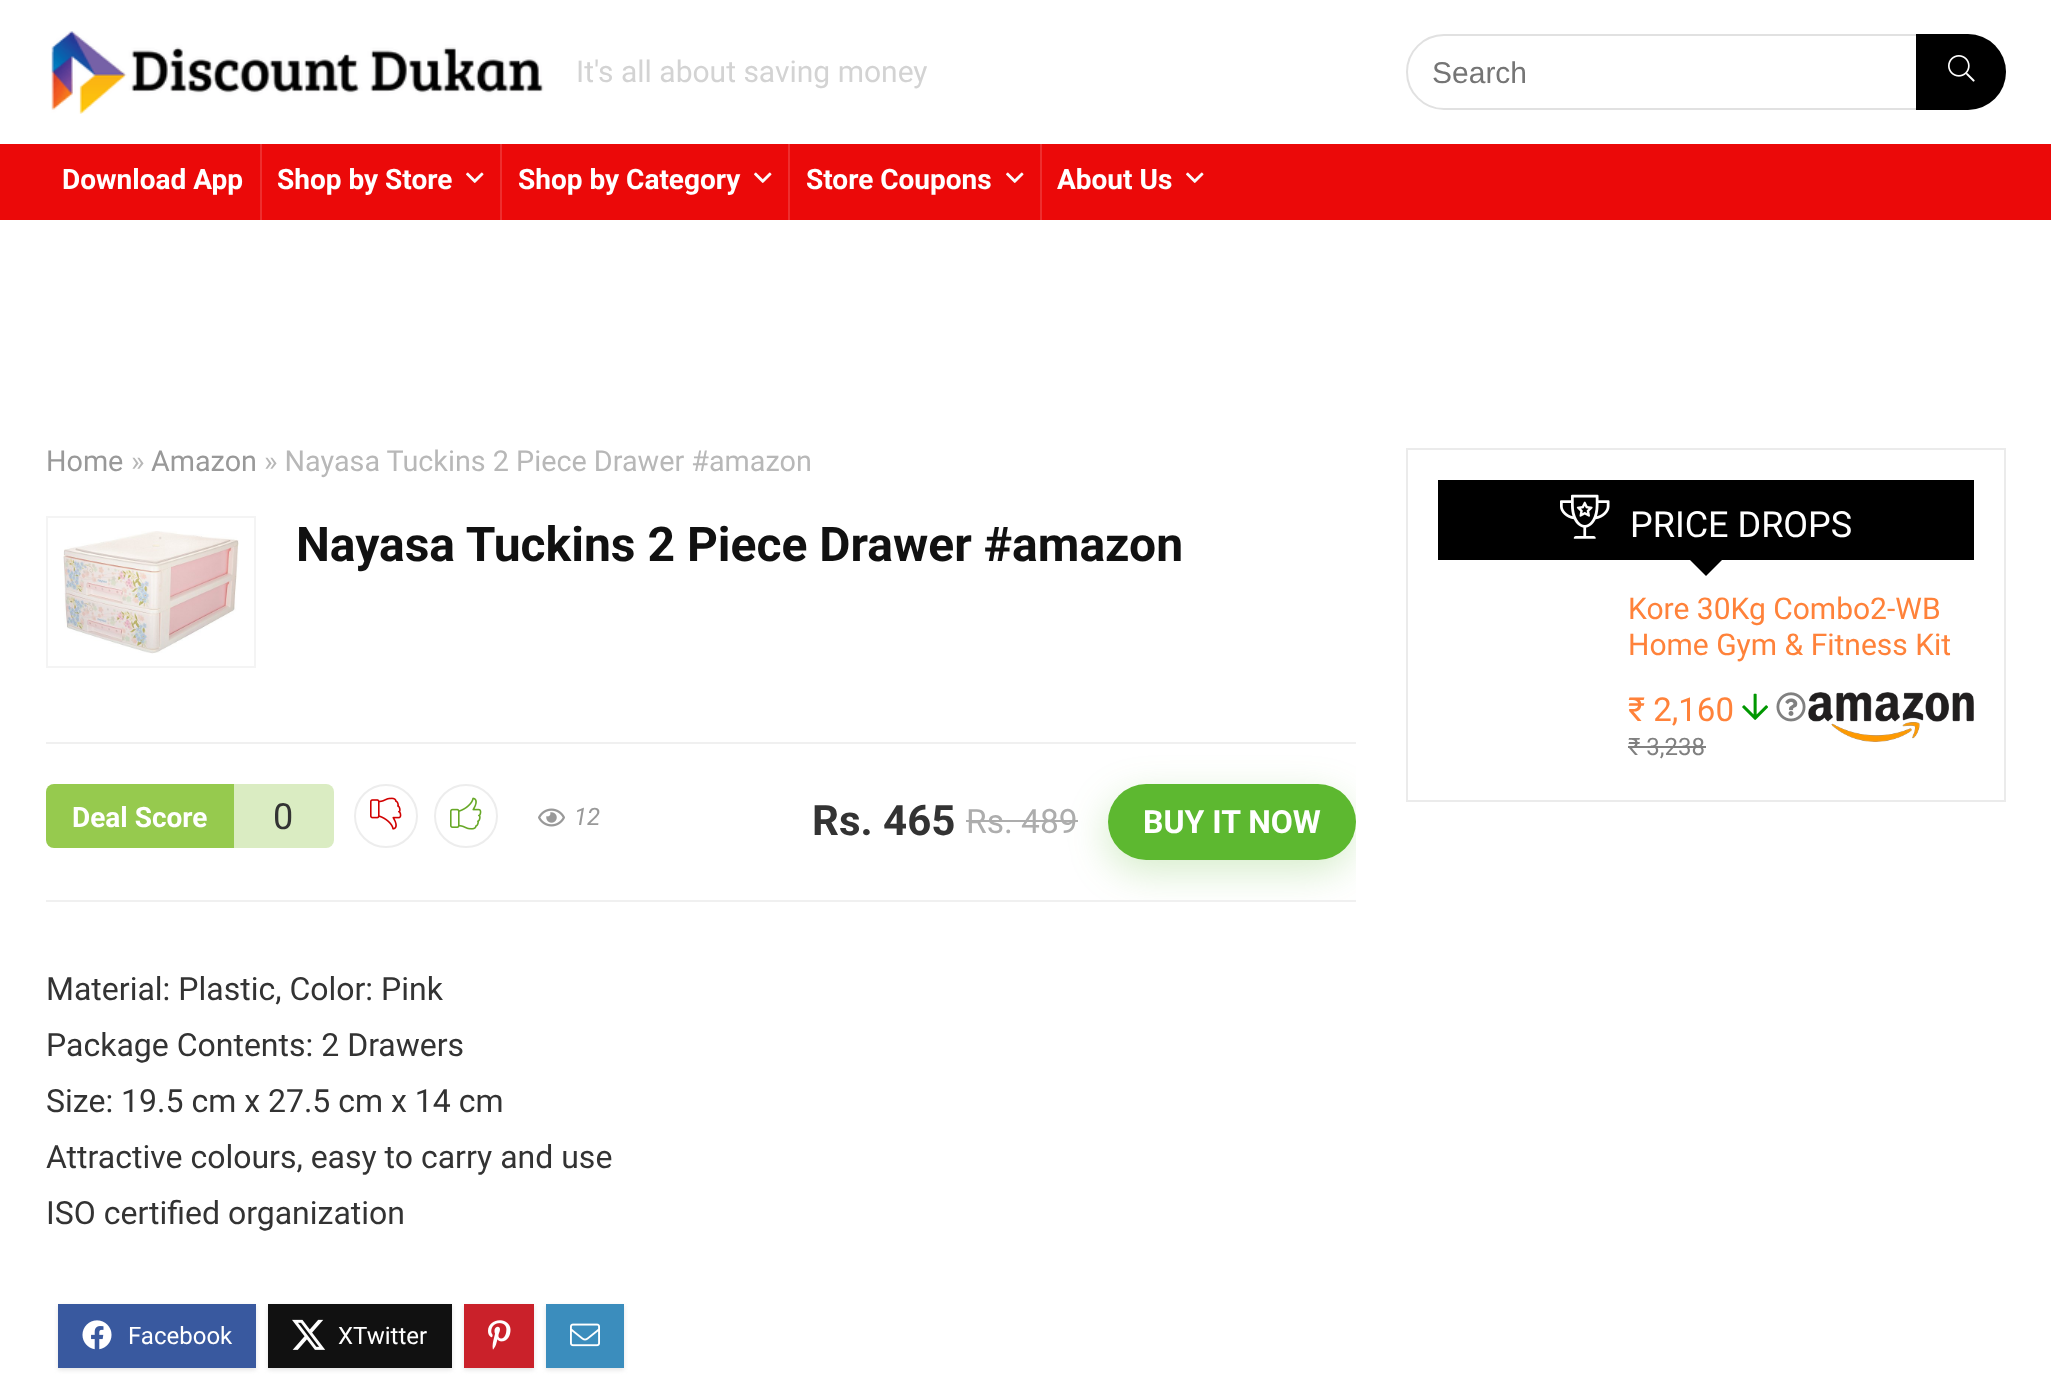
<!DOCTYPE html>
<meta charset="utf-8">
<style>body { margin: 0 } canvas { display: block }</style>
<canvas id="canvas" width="2051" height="1378"></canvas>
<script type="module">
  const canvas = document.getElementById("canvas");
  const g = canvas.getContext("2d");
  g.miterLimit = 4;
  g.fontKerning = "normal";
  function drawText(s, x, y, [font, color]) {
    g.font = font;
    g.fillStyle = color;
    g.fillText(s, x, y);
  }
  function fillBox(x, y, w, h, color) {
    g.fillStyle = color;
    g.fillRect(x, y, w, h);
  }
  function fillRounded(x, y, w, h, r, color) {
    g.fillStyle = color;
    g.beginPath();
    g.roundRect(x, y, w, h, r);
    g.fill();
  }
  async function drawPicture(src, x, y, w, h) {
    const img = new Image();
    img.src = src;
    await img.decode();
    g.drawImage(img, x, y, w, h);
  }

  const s1 = ["30px Roboto", "#D3D3D3"];
  const s2 = ["30px Liberation Sans", "#757575"];
  const s3 = ["bold 28px Roboto", "#FFFFFF"];
  const s4 = ["28.75px Roboto", "#999999"];
  const s5 = ["28.75px Roboto", "#B8B8B8"];
  const s6 = ["bold 48px Roboto", "#111111"];
  const s7 = ["36px Roboto", "#333333"];
  const s8 = ["italic 24px Roboto", "#999999"];
  const s9 = ["bold 42px Roboto", "#333333"];
  const s10 = ["33.5px Roboto", "#ADADAD"];
  const s11 = ["bold 32px Roboto", "#FFFFFF"];
  const s12 = ["32px Roboto", "#333333"];
  const s13 = ["24px Roboto", "#FFFFFF"];
  const s14 = ["36px Roboto", "#FFFFFF"];
  const s15 = ["30px Roboto", "#FF823A"];
  const s16 = ["33px Roboto", "#FF823A"];
  const s17 = ["24px Roboto", "#808080"];

  fillBox(0, 0, 2051, 1378, "#FFFFFF");
  await drawPicture("pic1.png", 51, 31, 493, 83);
  drawText("It's all about saving money", 576, 82, s1);
  g.beginPath();
  g.roundRect(1407, 35, 598, 74, 37);
  g.strokeStyle = "#E1E1E1";
  g.lineWidth = 2;
  g.stroke();
  drawText("Search", 1432, 83, s2);
  g.fillStyle = "#000000";
  g.beginPath();
  g.roundRect(1916, 34, 90, 76, [0, 38, 38, 0]);
  g.fill();
  await drawPicture("pic2.png", 1948, 55, 27, 27);
  fillBox(0, 144, 2051, 76, "#EB0909");
  fillBox(260, 144, 2, 76, "#EE2E2E");
  drawText("Download App", 62, 189, s3);
  fillBox(500, 144, 2, 76, "#EE2E2E");
  drawText("Shop by Store", 277, 189, s3);
  await drawPicture("pic3.png", 466, 172, 18, 11);
  fillBox(788, 144, 2, 76, "#EE2E2E");
  drawText("Shop by Category", 518, 189, s3);
  await drawPicture("pic3.png", 754, 172, 18, 11);
  fillBox(1040, 144, 2, 76, "#EE2E2E");
  drawText("Store Coupons", 806, 189, s3);
  await drawPicture("pic3.png", 1006, 172, 18, 11);
  drawText("About Us", 1057, 189, s3);
  await drawPicture("pic3.png", 1186, 172, 18, 11);
  drawText("Home", 46, 471, s4);
  drawText("»", 131, 471, s5);
  drawText("Amazon", 151, 471, s4);
  drawText("» Nayasa Tuckins 2 Piece Drawer #amazon", 264, 471, s5);
  g.strokeStyle = "#F4F4F4";
  g.strokeRect(47, 517, 208, 150);
  await drawPicture("pic4.png", 63, 531, 176, 123);
  drawText("Nayasa Tuckins 2 Piece Drawer #amazon", 296, 561, s6);
  fillBox(46, 742, 1310, 2, "#F0F0F0");
  fillBox(46, 900, 1310, 2, "#F0F0F0");
  g.fillStyle = "#96CA4E";
  g.beginPath();
  g.roundRect(46, 784, 188, 64, [8, 0, 0, 8]);
  g.fill();
  drawText("Deal Score", 72, 827, s3);
  g.fillStyle = "#DAECC2";
  g.beginPath();
  g.roundRect(234, 784, 100, 64, [0, 8, 8, 0]);
  g.fill();
  drawText("0", 273, 829, s7);
  g.beginPath();
  g.arc(386, 816, 31, 0, Math.PI * 2);
  g.strokeStyle = "#EDEDED";
  g.stroke();
  await drawPicture("pic5.png", 370, 797, 32, 33);
  g.beginPath();
  g.arc(466, 816, 31, 0, Math.PI * 2);
  g.stroke();
  await drawPicture("pic6.png", 450, 797, 32, 33);
  await drawPicture("pic7.png", 538, 808, 27, 19);
  drawText("12", 574, 825, s8);
  drawText("Rs. 465", 812, 835, s9);
  drawText("Rs. 489", 966, 833, s10);
  fillBox(966, 820, 112, 2, "#ADADAD");
  g.strokeStyle = "#EBEBEB";
  g.strokeRect(1407, 449, 598, 352);
  g.save();
  g.beginPath();
  g.rect(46, 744, 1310, 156);
  g.clip();
  g.fillStyle = "rgba(93, 184, 48, 0.25)";
  g.filter = "blur(19px)";
  g.beginPath();
  g.roundRect(1106, 796, 248, 76, 38);
  g.fill();
  g.filter = "none";
  g.restore();
  fillRounded(1108, 784, 248, 76, 38, "#5DB830");
  drawText("BUY IT NOW", 1143, 833, s11);
  drawText("Material: Plastic, Color: Pink", 46, 1000, s12);
  drawText("Package Contents: 2 Drawers", 46, 1056, s12);
  drawText("Size: 19.5 cm x 27.5 cm x 14 cm", 46, 1112, s12);
  drawText("Attractive colours, easy to carry and use", 46, 1168, s12);
  drawText("ISO certified organization", 46, 1224, s12);
  g.fillStyle = "#E4E4E4";
  g.filter = "blur(2px)";
  g.beginPath();
  g.rect(58, 1306, 198, 64);
  g.fill();
  g.filter = "none";
  fillBox(58, 1304, 198, 64, "#39599F");
  await drawPicture("pic8.png", 82, 1320, 30, 30);
  drawText("Facebook", 128, 1344, s13);
  g.fillStyle = "#E4E4E4";
  g.filter = "blur(2px)";
  g.beginPath();
  g.rect(268, 1306, 184, 64);
  g.fill();
  g.filter = "none";
  fillBox(268, 1304, 184, 64, "#111111");
  await drawPicture("pic9.png", 292, 1319, 34, 31);
  drawText("XTwitter", 338, 1344, s13);
  g.fillStyle = "#E4E4E4";
  g.filter = "blur(2px)";
  g.beginPath();
  g.rect(464, 1306, 70, 64);
  g.fill();
  g.filter = "none";
  fillBox(464, 1304, 70, 64, "#CA212A");
  await drawPicture("pic10.png", 488, 1320, 23, 30);
  g.fillStyle = "#E4E4E4";
  g.filter = "blur(2px)";
  g.beginPath();
  g.rect(546, 1306, 78, 64);
  g.fill();
  g.filter = "none";
  fillBox(546, 1304, 78, 64, "#3B8DBD");
  await drawPicture("pic11.png", 570, 1323, 30, 24);
  fillBox(1438, 480, 536, 80, "#000000");
  await drawPicture("pic12.png", 1560, 494, 50, 45);
  drawText("PRICE DROPS", 1630, 537, s14);
  g.fillStyle = "#000000";
  g.beginPath();
  g.moveTo(1690, 560);
  g.lineTo(1722, 560);
  g.lineTo(1706, 576);
  g.closePath();
  g.fill();
  drawText("Kore 30Kg Combo2-WB", 1628, 619, s15);
  drawText("Home Gym & Fitness Kit", 1628, 655, s15);
  drawText("₹ 2,160", 1628, 721, s16);
  await drawPicture("pic13.png", 1742, 693, 26, 27);
  await drawPicture("pic14.png", 1776, 692, 30, 30);
  drawText("₹ 3,238", 1628, 755, s17);
  fillBox(1628, 746, 78, 2, "#808080");
  await drawPicture("pic15.png", 1808, 692, 166, 50);
</script>
